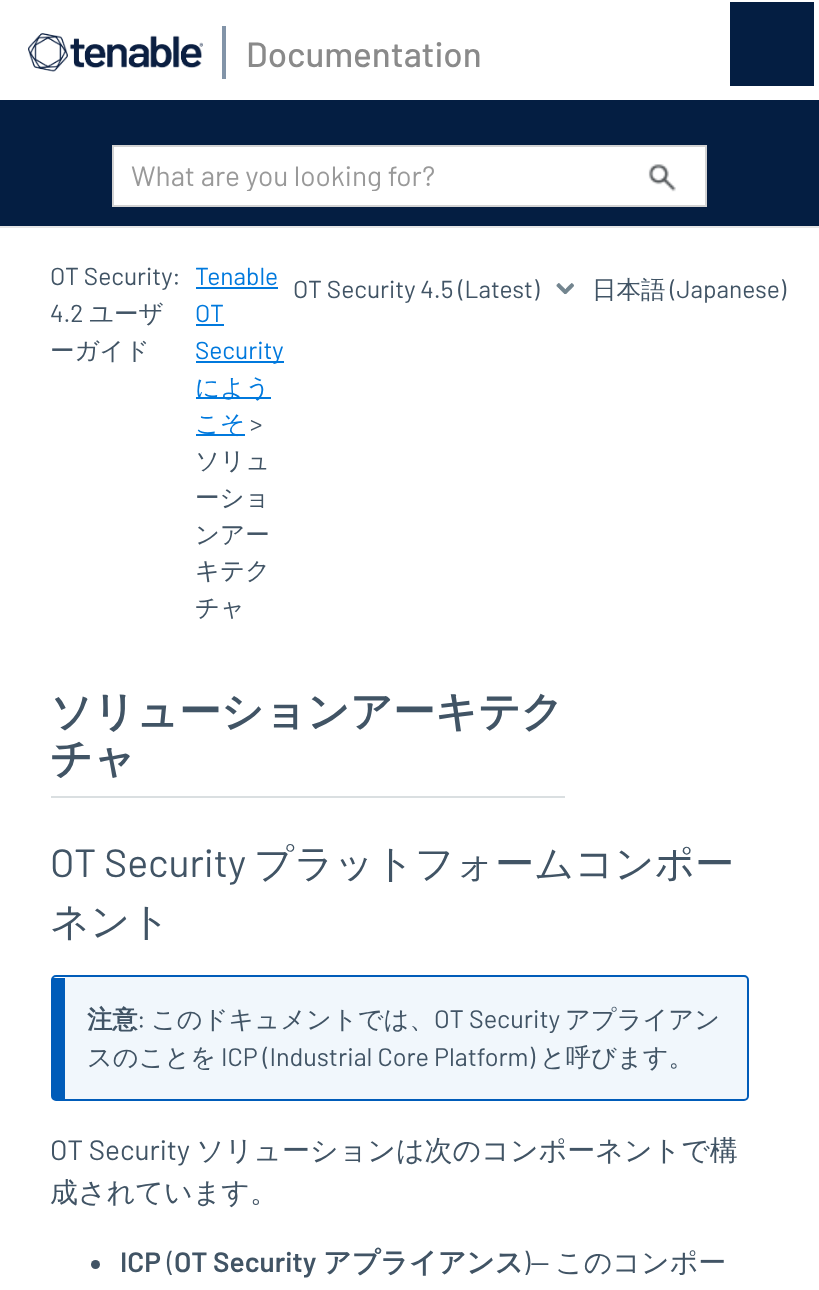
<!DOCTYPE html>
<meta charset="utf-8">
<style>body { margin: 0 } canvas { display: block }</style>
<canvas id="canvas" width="819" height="1290"></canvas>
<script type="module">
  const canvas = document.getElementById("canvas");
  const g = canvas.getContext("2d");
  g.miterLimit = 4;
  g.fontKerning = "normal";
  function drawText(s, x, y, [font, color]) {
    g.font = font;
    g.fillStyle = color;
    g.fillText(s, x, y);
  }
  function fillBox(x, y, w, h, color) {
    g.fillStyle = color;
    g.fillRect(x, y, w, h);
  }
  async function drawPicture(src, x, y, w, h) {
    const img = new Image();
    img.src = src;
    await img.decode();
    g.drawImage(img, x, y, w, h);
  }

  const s1 = ["500 35px Barlow", "#8A8A8A"];
  const s2 = ["28px Barlow", "#999999"];
  const s3 = ["24.5px Barlow", "#415465"];
  const s4 = ["500 24.5px WenQuanYi Zen Hei", "#415465"];
  const s5 = ["24.5px Barlow", "#0079DD"];
  const s6 = ["500 24.5px WenQuanYi Zen Hei", "#0079DD"];
  const s7 = ["bold 42px WenQuanYi Zen Hei", "#415465"];
  const s8 = ["39.25px Barlow", "#415465"];
  const s9 = ["500 39.25px WenQuanYi Zen Hei", "#415465"];
  const s10 = ["bold 25.25px WenQuanYi Zen Hei", "#415465"];
  const s11 = ["25.25px Barlow", "#415465"];
  const s12 = ["500 25.25px WenQuanYi Zen Hei", "#415465"];
  const s13 = ["28px Barlow", "#415465"];
  const s14 = ["500 28px WenQuanYi Zen Hei", "#415465"];
  const s15 = ["600 28px Barlow", "#415465"];
  const s16 = ["bold 28px WenQuanYi Zen Hei", "#415465"];

  fillBox(0, 0, 819, 1290, "#FFFFFF");
  fillBox(0, 226, 819, 2, "#E6E6E6");
  await drawPicture("pic1.png", 28, 33, 175, 39);
  fillBox(222, 26, 4, 53, "#8294A8");
  drawText("Documentation", 246, 67, s1);
  fillBox(0, 100, 819, 126, "#041E42");
  g.fillStyle = "#FFFFFF";
  g.beginPath();
  g.rect(113, 146, 593, 60);
  g.fill();
  g.strokeStyle = "#D3D3D3";
  g.lineWidth = 2;
  g.stroke();
  g.save();
  g.beginPath();
  g.rect(131, 158, 398, 33);
  g.clip();
  drawText("What are you looking for?", 131, 186, s2);
  g.restore();
  await drawPicture("pic2.png", 648, 164, 28, 28);
  fillBox(730, 2, 84, 84, "#041E42");
  drawText("OT Security:", 50, 285, s3);
  drawText("4.2", 50, 322, s3);
  drawText("ユーザ", 89, 322, s4);
  drawText("ーガイド", 50, 359, s4);
  drawText("Tenable", 195, 285, s5);
  fillBox(196, 287, 82, 2, "#0079DD");
  drawText("OT", 195, 322, s5);
  fillBox(196, 324, 28, 2, "#0079DD");
  fillBox(196, 361, 88, 2, "#0079DD");
  drawText("Security", 195, 359, s5);
  fillBox(196, 397, 75, 2, "#0079DD");
  drawText("によう", 195, 396, s6);
  fillBox(196, 434, 49, 2, "#0079DD");
  drawText("こそ", 195, 432, s6);
  drawText(">", 250, 432, s3);
  drawText("ソリュ", 195, 469, s4);
  drawText("ーショ", 195, 506, s4);
  drawText("ンアー", 195, 543, s4);
  drawText("キテク", 195, 579, s4);
  drawText("チャ", 195, 616, s4);
  await drawPicture("pic3.png", 556, 283, 18, 12);
  drawText("OT Security 4.5 (Latest)", 293, 298, s3);
  drawText("日本語", 592, 298, s4);
  drawText("(Japanese)", 670, 298, s3);
  fillBox(51, 796, 514, 2, "#DADFE1");
  drawText("ソリューションアーキテク", 50, 726, s7);
  drawText("チャ", 50, 773, s7);
  drawText("OT Security", 50, 877, s8);
  drawText("プラットフォームコンポー", 254, 877, s9);
  drawText("ネント", 50, 935, s9);
  g.fillStyle = "#F1F7FC";
  g.beginPath();
  g.moveTo(65, 976);
  g.lineTo(744, 976);
  g.bezierCurveTo(746, 976, 747, 978, 747, 980);
  g.lineTo(747, 1096);
  g.bezierCurveTo(747, 1097, 746, 1099, 744, 1099);
  g.lineTo(65, 1099);
  g.closePath();
  g.fill();
  g.beginPath();
  g.roundRect(52, 976, 696, 124, 4);
  g.strokeStyle = "#005CB9";
  g.stroke();
  fillBox(53, 978, 12, 121, "#005CB9");
  drawText("注意", 87, 1028, s10);
  drawText(":", 137, 1028, s11);
  drawText("このドキュメントでは、", 151, 1028, s12);
  drawText("OT Security", 434, 1028, s11);
  drawText("アプライアン", 565, 1028, s12);
  drawText("スのことを", 87, 1066, s12);
  drawText("ICP (Industrial Core Platform)", 221, 1066, s11);
  drawText("と呼びます。", 540, 1066, s12);
  drawText("OT Security", 50, 1160, s13);
  drawText("ソリューションは次のコンポーネントで構", 196, 1160, s14);
  drawText("成されています。", 50, 1202, s14);
  g.beginPath();
  g.arc(95.5, 1264.5, 4.5, 0, Math.PI * 2);
  g.fill();
  drawText("ICP", 120, 1272, s15);
  drawText("(", 167, 1272, s13);
  drawText("OT Security", 174, 1272, s15);
  drawText("アプライアンス", 323, 1272, s16);
  drawText(")—", 523, 1272, s13);
  drawText("このコンポー", 555, 1272, s14);
</script>
